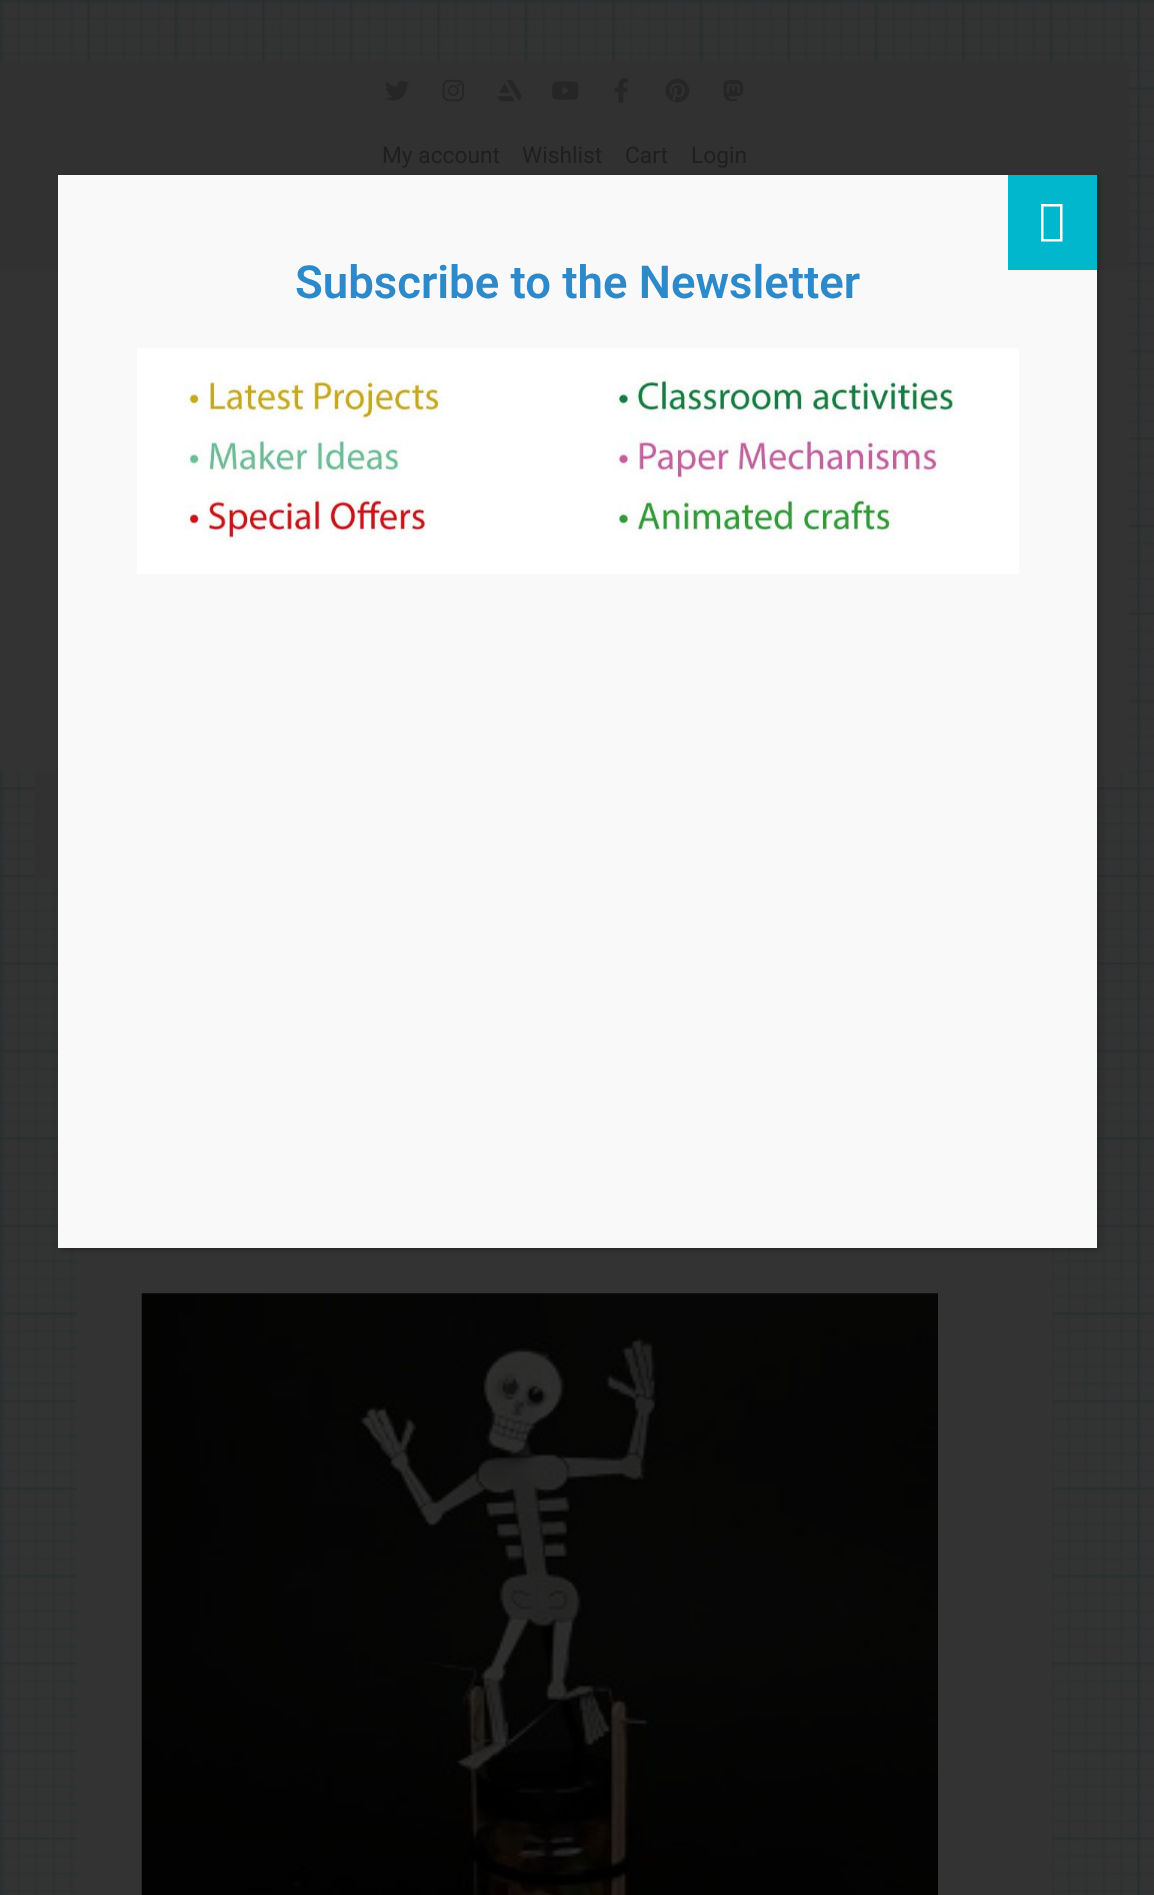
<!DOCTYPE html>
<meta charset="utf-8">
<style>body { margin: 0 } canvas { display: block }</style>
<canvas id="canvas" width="1154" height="1895"></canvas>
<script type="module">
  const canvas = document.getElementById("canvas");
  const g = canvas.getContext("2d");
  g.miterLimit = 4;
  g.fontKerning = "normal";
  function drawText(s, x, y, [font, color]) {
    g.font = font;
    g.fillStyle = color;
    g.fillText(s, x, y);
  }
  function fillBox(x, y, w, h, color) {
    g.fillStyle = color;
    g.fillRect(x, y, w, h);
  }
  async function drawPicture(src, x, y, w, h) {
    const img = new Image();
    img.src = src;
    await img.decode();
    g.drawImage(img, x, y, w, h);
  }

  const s1 = ["22.75px Roboto", "#1F1F1F"];
  const s2 = ["600 45.5px Roboto", "#2C8ACA"];

  fillBox(0, 0, 1154, 1895, "#FFFFFF");
  await drawPicture("pic1.png", 0, 0, 1154, 1895);
  fillBox(0, 61, 1129, 210, "#313131");
  await drawPicture("pic2.png", 385, 80, 25, 21);
  await drawPicture("pic3.png", 442, 79, 22, 23);
  await drawPicture("pic4.png", 497, 79, 25, 23);
  await drawPicture("pic5.png", 552, 81, 27, 19);
  await drawPicture("pic6.png", 614, 78, 14, 25);
  await drawPicture("pic7.png", 665, 78, 25, 25);
  await drawPicture("pic8.png", 723, 79, 21, 23);
  drawText("My account", 382, 163, s1);
  drawText("Wishlist", 522, 163, s1);
  drawText("Cart", 625, 163, s1);
  drawText("Login", 691, 163, s1);
  fillBox(0, 271, 1129, 501, "#333333");
  fillBox(35, 772, 23, 106, "#313131");
  fillBox(77, 1248, 975, 647, "#333333");
  await drawPicture("pic9.png", 141, 1293, 797, 602);
  g.fillStyle = "rgba(2, 2, 2, 0.23)";
  g.filter = "blur(2.5px)";
  g.beginPath();
  g.rect(60, 177, 1039, 1073);
  g.fill();
  g.filter = "none";
  fillBox(58, 175, 1039, 1073, "#F9F9F9");
  fillBox(1008, 175, 89, 95, "#00B7CD");
  g.fillStyle = "#FFFFFF";
  g.beginPath();
  g.moveTo(1041, 241.5);
  g.lineTo(1041, 204);
  g.lineTo(1062.5, 204);
  g.lineTo(1062.5, 241.5);
  g.closePath();
  g.moveTo(1043.5, 239);
  g.lineTo(1060, 239);
  g.lineTo(1060, 206.5);
  g.lineTo(1043.5, 206.5);
  g.closePath();
  g.fill();
  drawText("Subscribe to the Newsletter", 295, 298, s2);
  await drawPicture("pic10.png", 137, 348, 882, 226);
</script>
